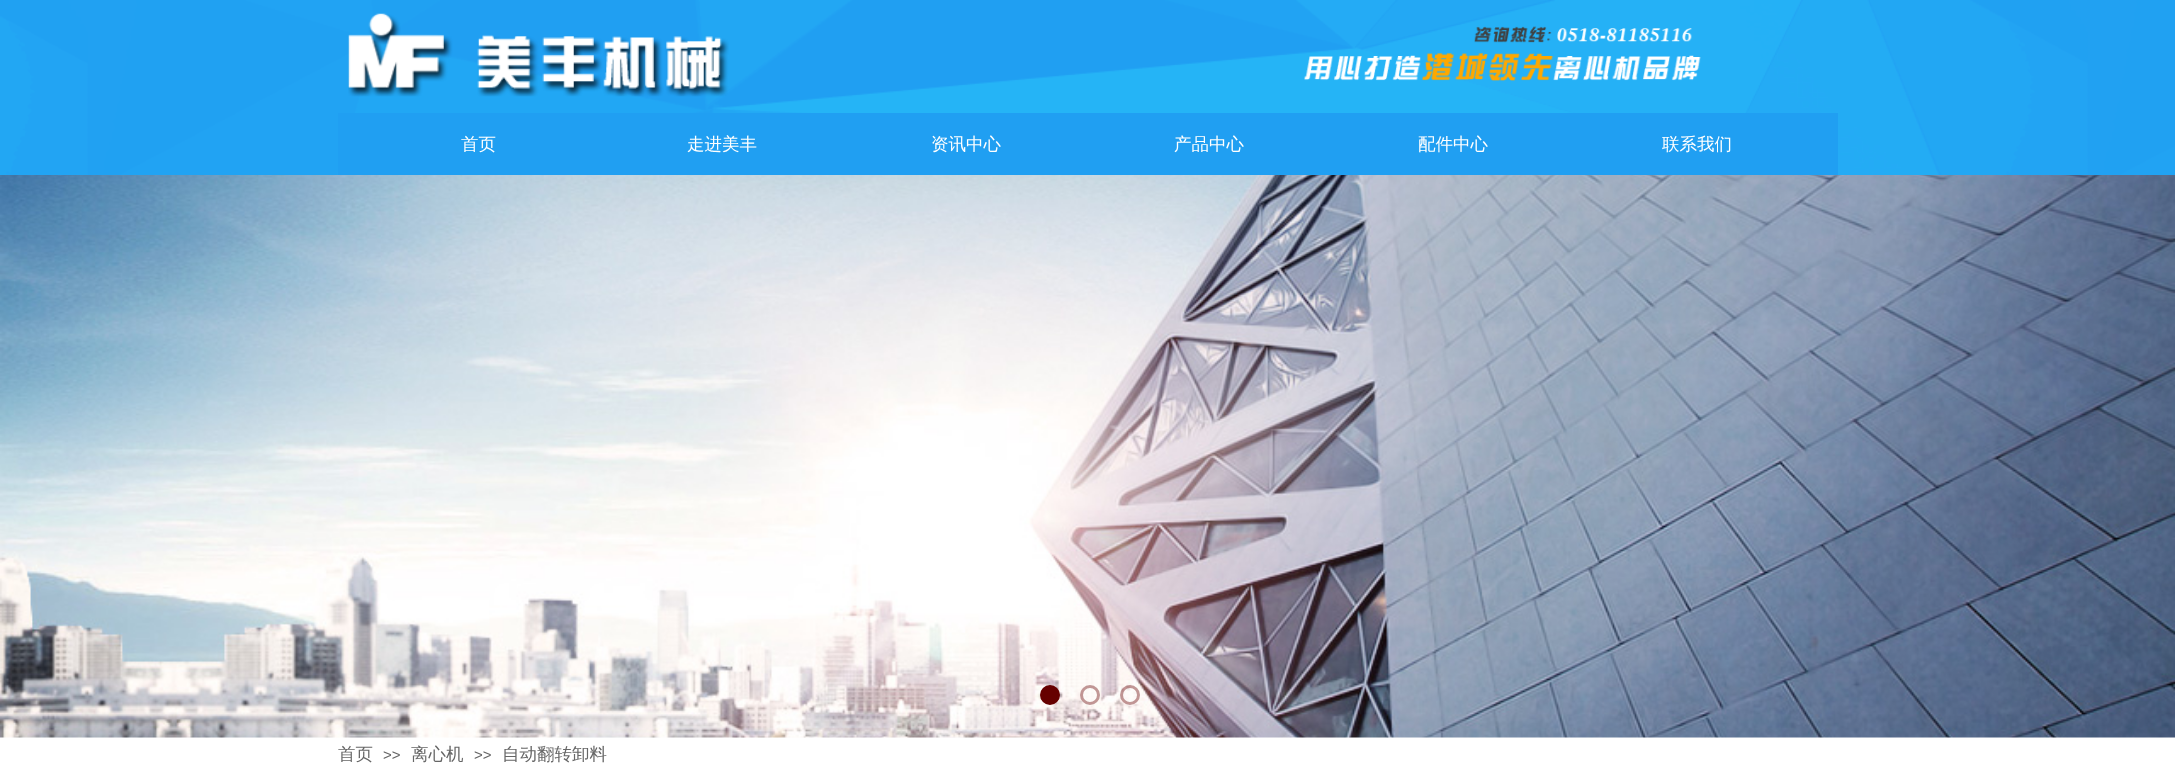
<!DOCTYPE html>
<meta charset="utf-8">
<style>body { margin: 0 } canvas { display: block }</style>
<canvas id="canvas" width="2175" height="774"></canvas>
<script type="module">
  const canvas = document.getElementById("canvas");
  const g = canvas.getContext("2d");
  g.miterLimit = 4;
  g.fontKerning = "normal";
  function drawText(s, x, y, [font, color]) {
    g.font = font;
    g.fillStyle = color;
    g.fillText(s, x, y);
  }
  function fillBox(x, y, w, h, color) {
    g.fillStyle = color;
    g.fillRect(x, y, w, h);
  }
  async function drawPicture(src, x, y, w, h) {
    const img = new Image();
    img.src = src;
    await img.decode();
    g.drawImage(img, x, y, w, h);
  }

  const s1 = ["500 17.5px WenQuanYi Zen Hei", "#FFFFFF"];
  const s2 = ["500 17.5px WenQuanYi Zen Hei", "#666666"];
  const s3 = ["15px Liberation Sans", "#666666"];

  fillBox(0, 0, 2175, 774, "#FFFFFF");
  await drawPicture("pic1.png", 0, 0, 2175, 175);
  await drawPicture("pic2.png", 348, 13, 381, 84);
  await drawPicture("pic3.png", 1304, 26, 397, 55);
  fillBox(338, 113, 1500, 62, "#209FF2");
  drawText("首页", 461, 150, s1);
  drawText("走进美丰", 687, 150, s1);
  drawText("资讯中心", 931, 150, s1);
  drawText("产品中心", 1174, 150, s1);
  drawText("配件中心", 1418, 150, s1);
  drawText("联系我们", 1662, 150, s1);
  await drawPicture("pic4.png", 0, 175, 2175, 563);
  g.fillStyle = "#660000";
  g.beginPath();
  g.arc(1050, 695, 8.5, 0, Math.PI * 2);
  g.fill();
  g.strokeStyle = "#660000";
  g.lineWidth = 3;
  g.stroke();
  g.fillStyle = "rgba(255, 255, 255, 0.4)";
  g.beginPath();
  g.arc(1090, 695, 10, 0, Math.PI * 2);
  g.fill();
  g.beginPath();
  g.arc(1090, 695, 8.5, 0, Math.PI * 2);
  g.strokeStyle = "rgba(102, 0, 0, 0.4)";
  g.stroke();
  g.beginPath();
  g.arc(1130, 695, 10, 0, Math.PI * 2);
  g.fill();
  g.beginPath();
  g.arc(1130, 695, 8.5, 0, Math.PI * 2);
  g.stroke();
  drawText("首页", 338, 760, s2);
  drawText(">>", 383, 760, s3);
  drawText("离心机", 411, 760, s2);
  drawText(">>", 474, 760, s3);
  drawText("自动翻转卸料", 502, 760, s2);
</script>
